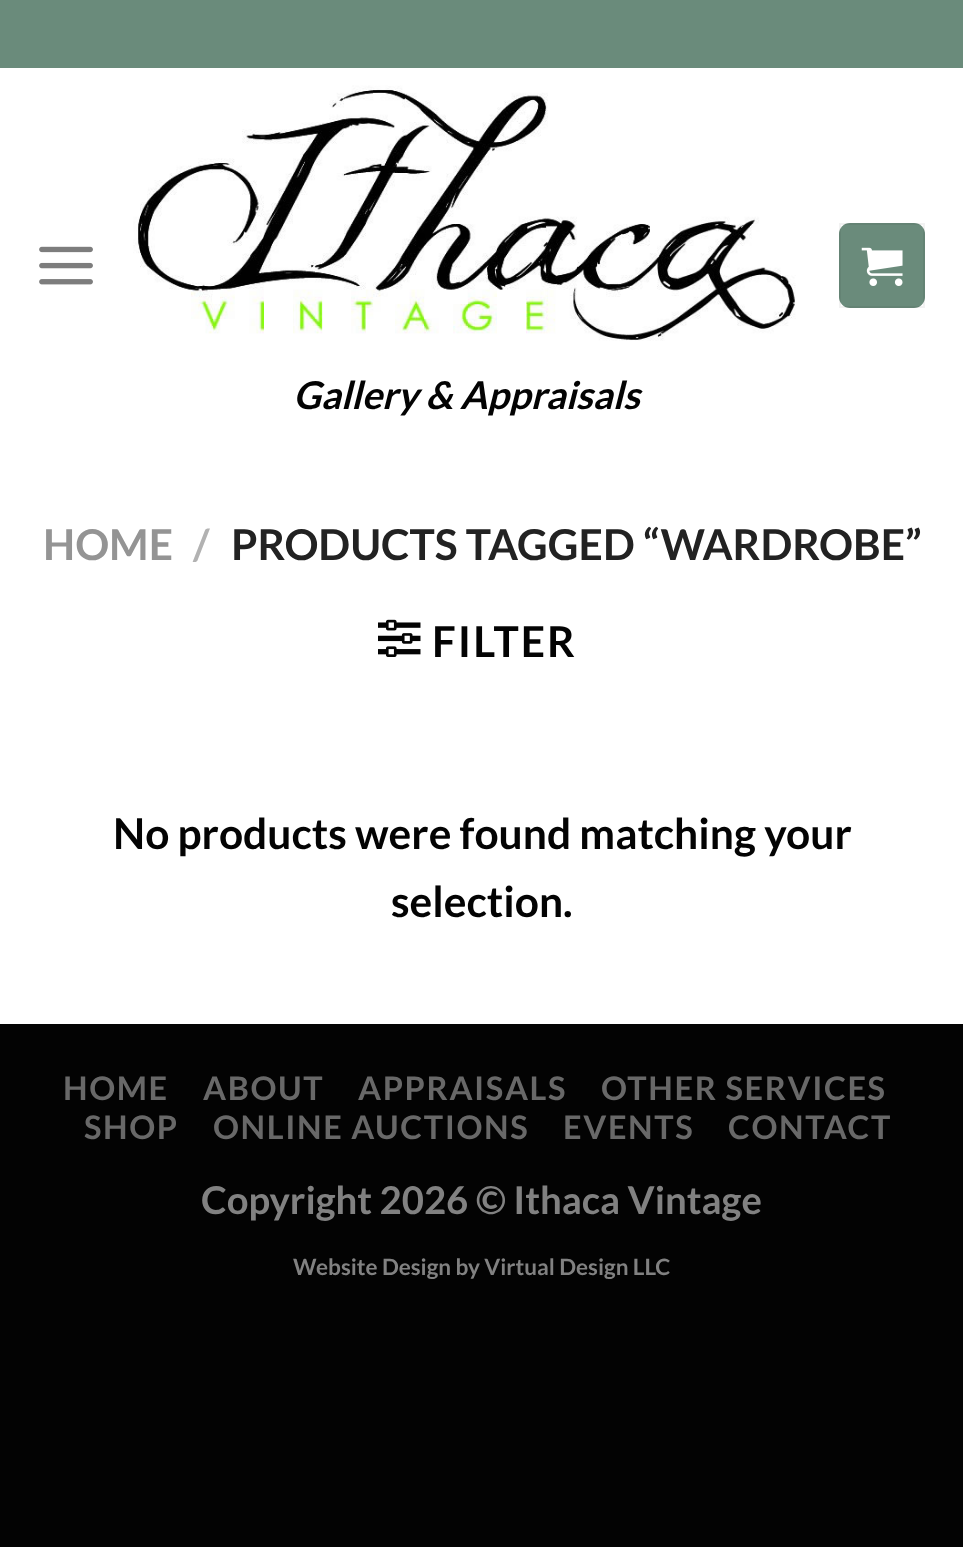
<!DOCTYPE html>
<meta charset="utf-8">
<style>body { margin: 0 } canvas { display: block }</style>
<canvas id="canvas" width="963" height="1547"></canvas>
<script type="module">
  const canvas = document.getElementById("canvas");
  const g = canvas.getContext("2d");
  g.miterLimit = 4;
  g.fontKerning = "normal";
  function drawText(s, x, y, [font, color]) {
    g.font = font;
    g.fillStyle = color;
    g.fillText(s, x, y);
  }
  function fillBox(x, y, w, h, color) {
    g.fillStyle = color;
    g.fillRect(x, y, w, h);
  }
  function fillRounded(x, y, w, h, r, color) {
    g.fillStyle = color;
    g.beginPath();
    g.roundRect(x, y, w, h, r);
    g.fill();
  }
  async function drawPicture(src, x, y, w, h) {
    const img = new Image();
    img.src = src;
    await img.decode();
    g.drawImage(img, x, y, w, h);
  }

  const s1 = ["italic bold 38.25px Lato", "#030303"];
  const s2 = ["bold 42.5px Lato", "#949494"];
  const s3 = ["bold 42.5px Lato", "#B2B2B2"];
  const s4 = ["bold 42.5px Lato", "#222222"];
  const s5 = ["bold 42.5px Lato", "#030303"];
  const s6 = ["bold 32.5px Lato", "#686868"];
  const s7 = ["bold 38.25px Lato", "#818181"];
  const s8 = ["bold 22.5px Lato", "#818181"];

  fillBox(0, 0, 963, 1547, "#030303");
  fillBox(0, 68, 963, 956, "#FFFFFF");
  fillBox(0, 0, 963, 68, "#6A8B7B");
  await drawPicture("pic1.png", 39, 246, 54, 39);
  fillRounded(839, 223, 86, 85, 11, "#6A8B7B");
  g.strokeStyle = "rgba(0, 0, 0, 0.05)";
  g.lineWidth = 2;
  g.strokeRect(840, 224, 84, 83);
  await drawPicture("pic2.png", 861, 247, 42, 39);
  await drawPicture("pic3.png", 133, 85, 663, 256);
  drawText("Gallery & Appraisals", 293, 409, s1);
  drawText("HOME", 43, 560, s2);
  drawText("/", 193, 560, s3);
  drawText("PRODUCTS TAGGED “WARDROBE”", 231, 560, s4);
  await drawPicture("pic4.png", 378, 619, 43, 38);
  g.letterSpacing = "2px";
  drawText("FILTER", 432, 657, s5);
  g.letterSpacing = "0px";
  drawText("No products were found matching your", 113, 849, s5);
  drawText("selection.", 391, 917, s5);
  g.letterSpacing = "1.6px";
  drawText("HOME", 63, 1100, s6);
  drawText("ABOUT", 203, 1100, s6);
  drawText("APPRAISALS", 358, 1100, s6);
  drawText("OTHER SERVICES", 601, 1100, s6);
  drawText("SHOP", 84, 1139, s6);
  drawText("ONLINE AUCTIONS", 213, 1139, s6);
  drawText("EVENTS", 563, 1139, s6);
  drawText("CONTACT", 728, 1139, s6);
  g.letterSpacing = "0px";
  drawText("Copyright 2026 © Ithaca Vintage", 201, 1214, s7);
  drawText("Website Design by Virtual Design LLC", 293, 1275, s8);
</script>
